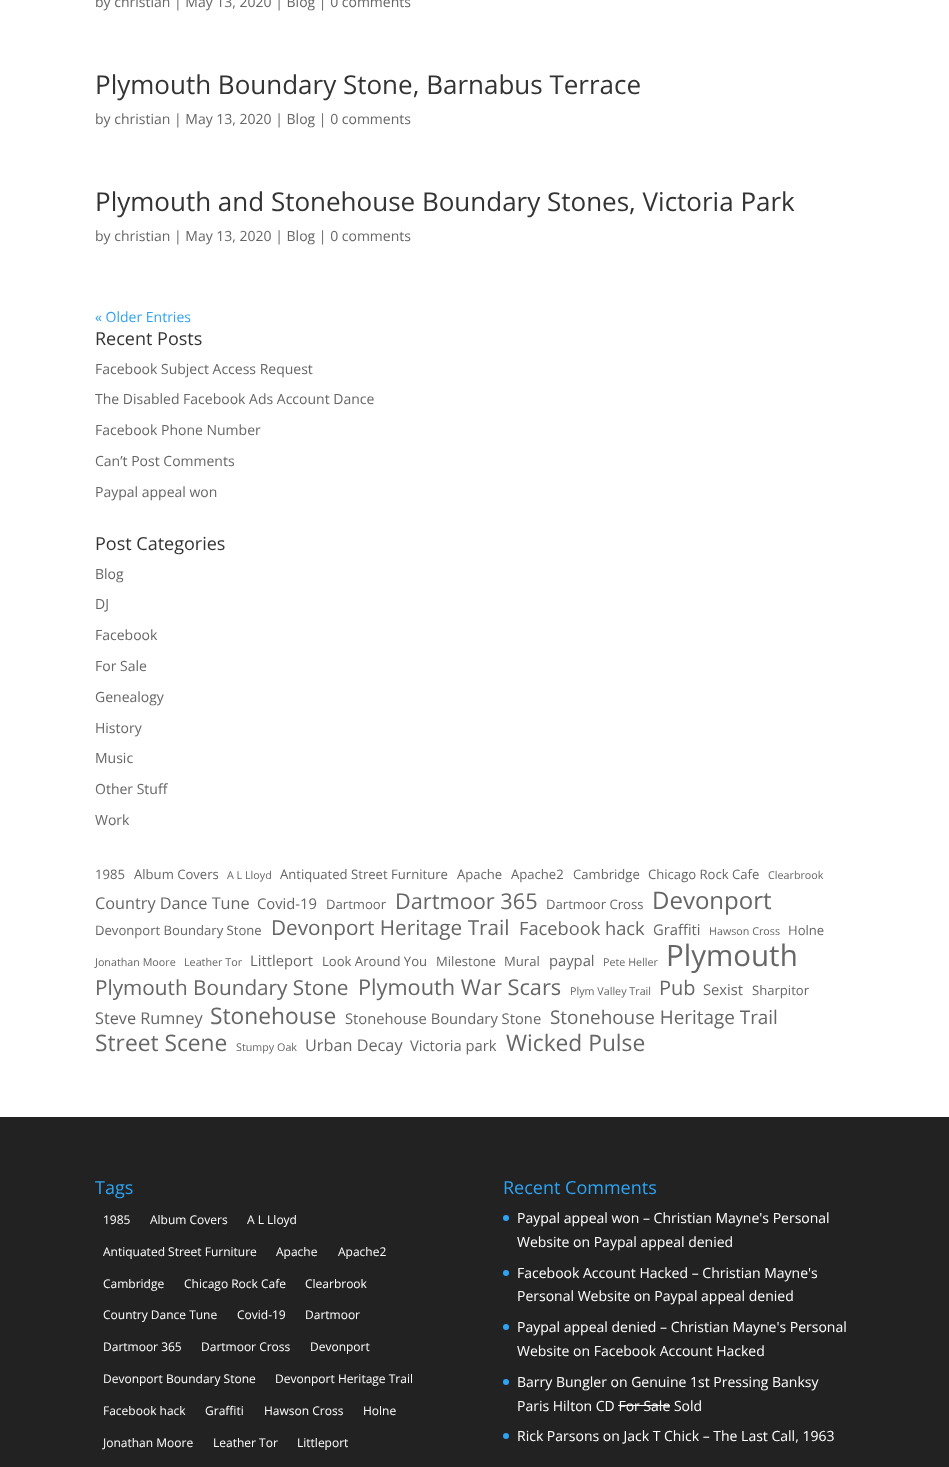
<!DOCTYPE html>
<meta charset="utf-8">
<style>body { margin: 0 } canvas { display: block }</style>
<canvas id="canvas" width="949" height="1467"></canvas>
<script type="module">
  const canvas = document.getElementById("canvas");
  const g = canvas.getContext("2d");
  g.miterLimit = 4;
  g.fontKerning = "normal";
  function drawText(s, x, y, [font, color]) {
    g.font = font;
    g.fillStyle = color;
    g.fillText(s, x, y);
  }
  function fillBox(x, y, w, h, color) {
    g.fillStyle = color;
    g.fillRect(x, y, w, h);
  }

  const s1 = ["14px Open Sans", "#666666"];
  const s2 = ["26px Open Sans", "#333333"];
  const s3 = ["14px Open Sans", "#2EA3F2"];
  const s4 = ["18px Open Sans", "#333333"];
  const s5 = ["13.1px Open Sans", "#666666"];
  const s6 = ["10.75px Open Sans", "#666666"];
  const s7 = ["16.25px Open Sans", "#666666"];
  const s8 = ["14.75px Open Sans", "#666666"];
  const s9 = ["21.75px Open Sans", "#666666"];
  const s10 = ["24px Open Sans", "#666666"];
  const s11 = ["20.75px Open Sans", "#666666"];
  const s12 = ["18.25px Open Sans", "#666666"];
  const s13 = ["29.5px Open Sans", "#666666"];
  const s14 = ["20px Open Sans", "#666666"];
  const s15 = ["22.75px Open Sans", "#666666"];
  const s16 = ["18.9px Open Sans", "#666666"];
  const s17 = ["18px Open Sans", "#2EA3F2"];
  const s18 = ["12px Open Sans", "#FFFFFF"];
  const s19 = ["14px Open Sans", "#FFFFFF"];

  fillBox(0, 0, 949, 1467, "#FFFFFF");
  drawText("by christian | May 13, 2020 | Blog | 0 comments", 95, 7, s1);
  drawText("Plymouth Boundary Stone, Barnabus Terrace", 95, 94, s2);
  drawText("by christian | May 13, 2020 | Blog | 0 comments", 95, 124, s1);
  drawText("Plymouth and Stonehouse Boundary Stones, Victoria Park", 95, 211, s2);
  drawText("by christian | May 13, 2020 | Blog | 0 comments", 95, 241, s1);
  drawText("« Older Entries", 95, 322, s3);
  drawText("Recent Posts", 95, 345, s4);
  drawText("Facebook Subject Access Request", 95, 374, s1);
  drawText("The Disabled Facebook Ads Account Dance", 95, 404, s1);
  drawText("Facebook Phone Number", 95, 435, s1);
  drawText("Can’t Post Comments", 95, 466, s1);
  drawText("Paypal appeal won", 95, 497, s1);
  drawText("Post Categories", 95, 550, s4);
  drawText("Blog", 95, 579, s1);
  drawText("DJ", 95, 609, s1);
  drawText("Facebook", 95, 640, s1);
  drawText("For Sale", 95, 671, s1);
  drawText("Genealogy", 95, 702, s1);
  drawText("History", 95, 733, s1);
  drawText("Music", 95, 763, s1);
  drawText("Other Stuff", 95, 794, s1);
  drawText("Work", 95, 825, s1);
  drawText("1985", 95, 879, s5);
  drawText("Album Covers", 134, 879, s5);
  drawText("A L Lloyd", 227, 879, s6);
  drawText("Antiquated Street Furniture", 280, 879, s5);
  drawText("Apache", 457, 879, s5);
  drawText("Apache2", 511, 879, s5);
  drawText("Cambridge", 573, 879, s5);
  drawText("Chicago Rock Cafe", 648, 879, s5);
  drawText("Clearbrook", 768, 879, s6);
  drawText("Country Dance Tune", 95, 909, s7);
  drawText("Covid-19", 257, 909, s8);
  drawText("Dartmoor", 326, 909, s5);
  drawText("Dartmoor 365", 395, 909, s9);
  drawText("Dartmoor Cross", 546, 909, s5);
  drawText("Devonport", 652, 909, s10);
  drawText("Devonport Boundary Stone", 95, 935, s5);
  drawText("Devonport Heritage Trail", 271, 935, s11);
  drawText("Facebook hack", 519, 935, s12);
  drawText("Graffiti", 653, 935, s8);
  drawText("Hawson Cross", 709, 935, s6);
  drawText("Holne", 788, 935, s5);
  drawText("Jonathan Moore", 95, 966, s6);
  drawText("Leather Tor", 184, 966, s6);
  drawText("Littleport", 250, 966, s8);
  drawText("Look Around You", 322, 966, s5);
  drawText("Milestone", 436, 966, s5);
  drawText("Mural", 504, 966, s5);
  drawText("paypal", 549, 966, s8);
  drawText("Pete Heller", 603, 966, s6);
  drawText("Plymouth", 666, 966, s13);
  drawText("Plymouth Boundary Stone", 95, 995, s11);
  drawText("Plymouth War Scars", 358, 995, s9);
  drawText("Plym Valley Trail", 570, 995, s6);
  drawText("Pub", 659, 995, s14);
  drawText("Sexist", 703, 995, s8);
  drawText("Sharpitor", 752, 995, s5);
  drawText("Steve Rumney", 95, 1024, s7);
  drawText("Stonehouse", 210, 1024, s15);
  drawText("Stonehouse Boundary Stone", 345, 1024, s8);
  drawText("Stonehouse Heritage Trail", 550, 1024, s16);
  drawText("Street Scene", 95, 1051, s15);
  drawText("Stumpy Oak", 236, 1051, s6);
  drawText("Urban Decay", 305, 1051, s7);
  drawText("Victoria park", 410, 1051, s8);
  drawText("Wicked Pulse", 506, 1051, s15);
  fillBox(0, 1117, 949, 350, "#222222");
  drawText("Tags", 95, 1194, s17);
  drawText("1985", 103, 1224, s18);
  drawText("Album Covers", 150, 1224, s18);
  drawText("A L Lloyd", 247, 1224, s18);
  drawText("Antiquated Street Furniture", 103, 1256, s18);
  drawText("Apache", 276, 1256, s18);
  drawText("Apache2", 338, 1256, s18);
  drawText("Cambridge", 103, 1288, s18);
  drawText("Chicago Rock Cafe", 184, 1288, s18);
  drawText("Clearbrook", 305, 1288, s18);
  drawText("Country Dance Tune", 103, 1319, s18);
  drawText("Covid-19", 237, 1319, s18);
  drawText("Dartmoor", 305, 1319, s18);
  drawText("Dartmoor 365", 103, 1351, s18);
  drawText("Dartmoor Cross", 201, 1351, s18);
  drawText("Devonport", 310, 1351, s18);
  drawText("Devonport Boundary Stone", 103, 1383, s18);
  drawText("Devonport Heritage Trail", 275, 1383, s18);
  drawText("Facebook hack", 103, 1415, s18);
  drawText("Graffiti", 205, 1415, s18);
  drawText("Hawson Cross", 264, 1415, s18);
  drawText("Holne", 363, 1415, s18);
  drawText("Jonathan Moore", 103, 1447, s18);
  drawText("Leather Tor", 213, 1447, s18);
  drawText("Littleport", 297, 1447, s18);
  drawText("Recent Comments", 503, 1194, s17);
  g.beginPath();
  g.arc(506, 1218, 3, 0, Math.PI * 2);
  g.fill();
  drawText("Paypal appeal won – Christian Mayne's Personal", 517, 1223, s19);
  drawText("Website on Paypal appeal denied", 517, 1247, s19);
  g.fillStyle = "#2EA3F2";
  g.beginPath();
  g.arc(506, 1273, 3, 0, Math.PI * 2);
  g.fill();
  drawText("Facebook Account Hacked – Christian Mayne's", 517, 1278, s19);
  drawText("Personal Website on Paypal appeal denied", 517, 1301, s19);
  g.fillStyle = "#2EA3F2";
  g.beginPath();
  g.arc(506, 1327, 3, 0, Math.PI * 2);
  g.fill();
  drawText("Paypal appeal denied – Christian Mayne's Personal", 517, 1332, s19);
  drawText("Website on Facebook Account Hacked", 517, 1356, s19);
  g.fillStyle = "#2EA3F2";
  g.beginPath();
  g.arc(506, 1382, 3, 0, Math.PI * 2);
  g.fill();
  drawText("Barry Bungler on Genuine 1st Pressing Banksy", 517, 1387, s19);
  drawText("Paris Hilton CD For Sale Sold", 517, 1411, s19);
  fillBox(618, 1405, 52, 1, "#FFFFFF");
  g.fillStyle = "#2EA3F2";
  g.beginPath();
  g.arc(506, 1436, 3, 0, Math.PI * 2);
  g.fill();
  drawText("Rick Parsons on Jack T Chick – The Last Call, 1963", 517, 1441, s19);
</script>
